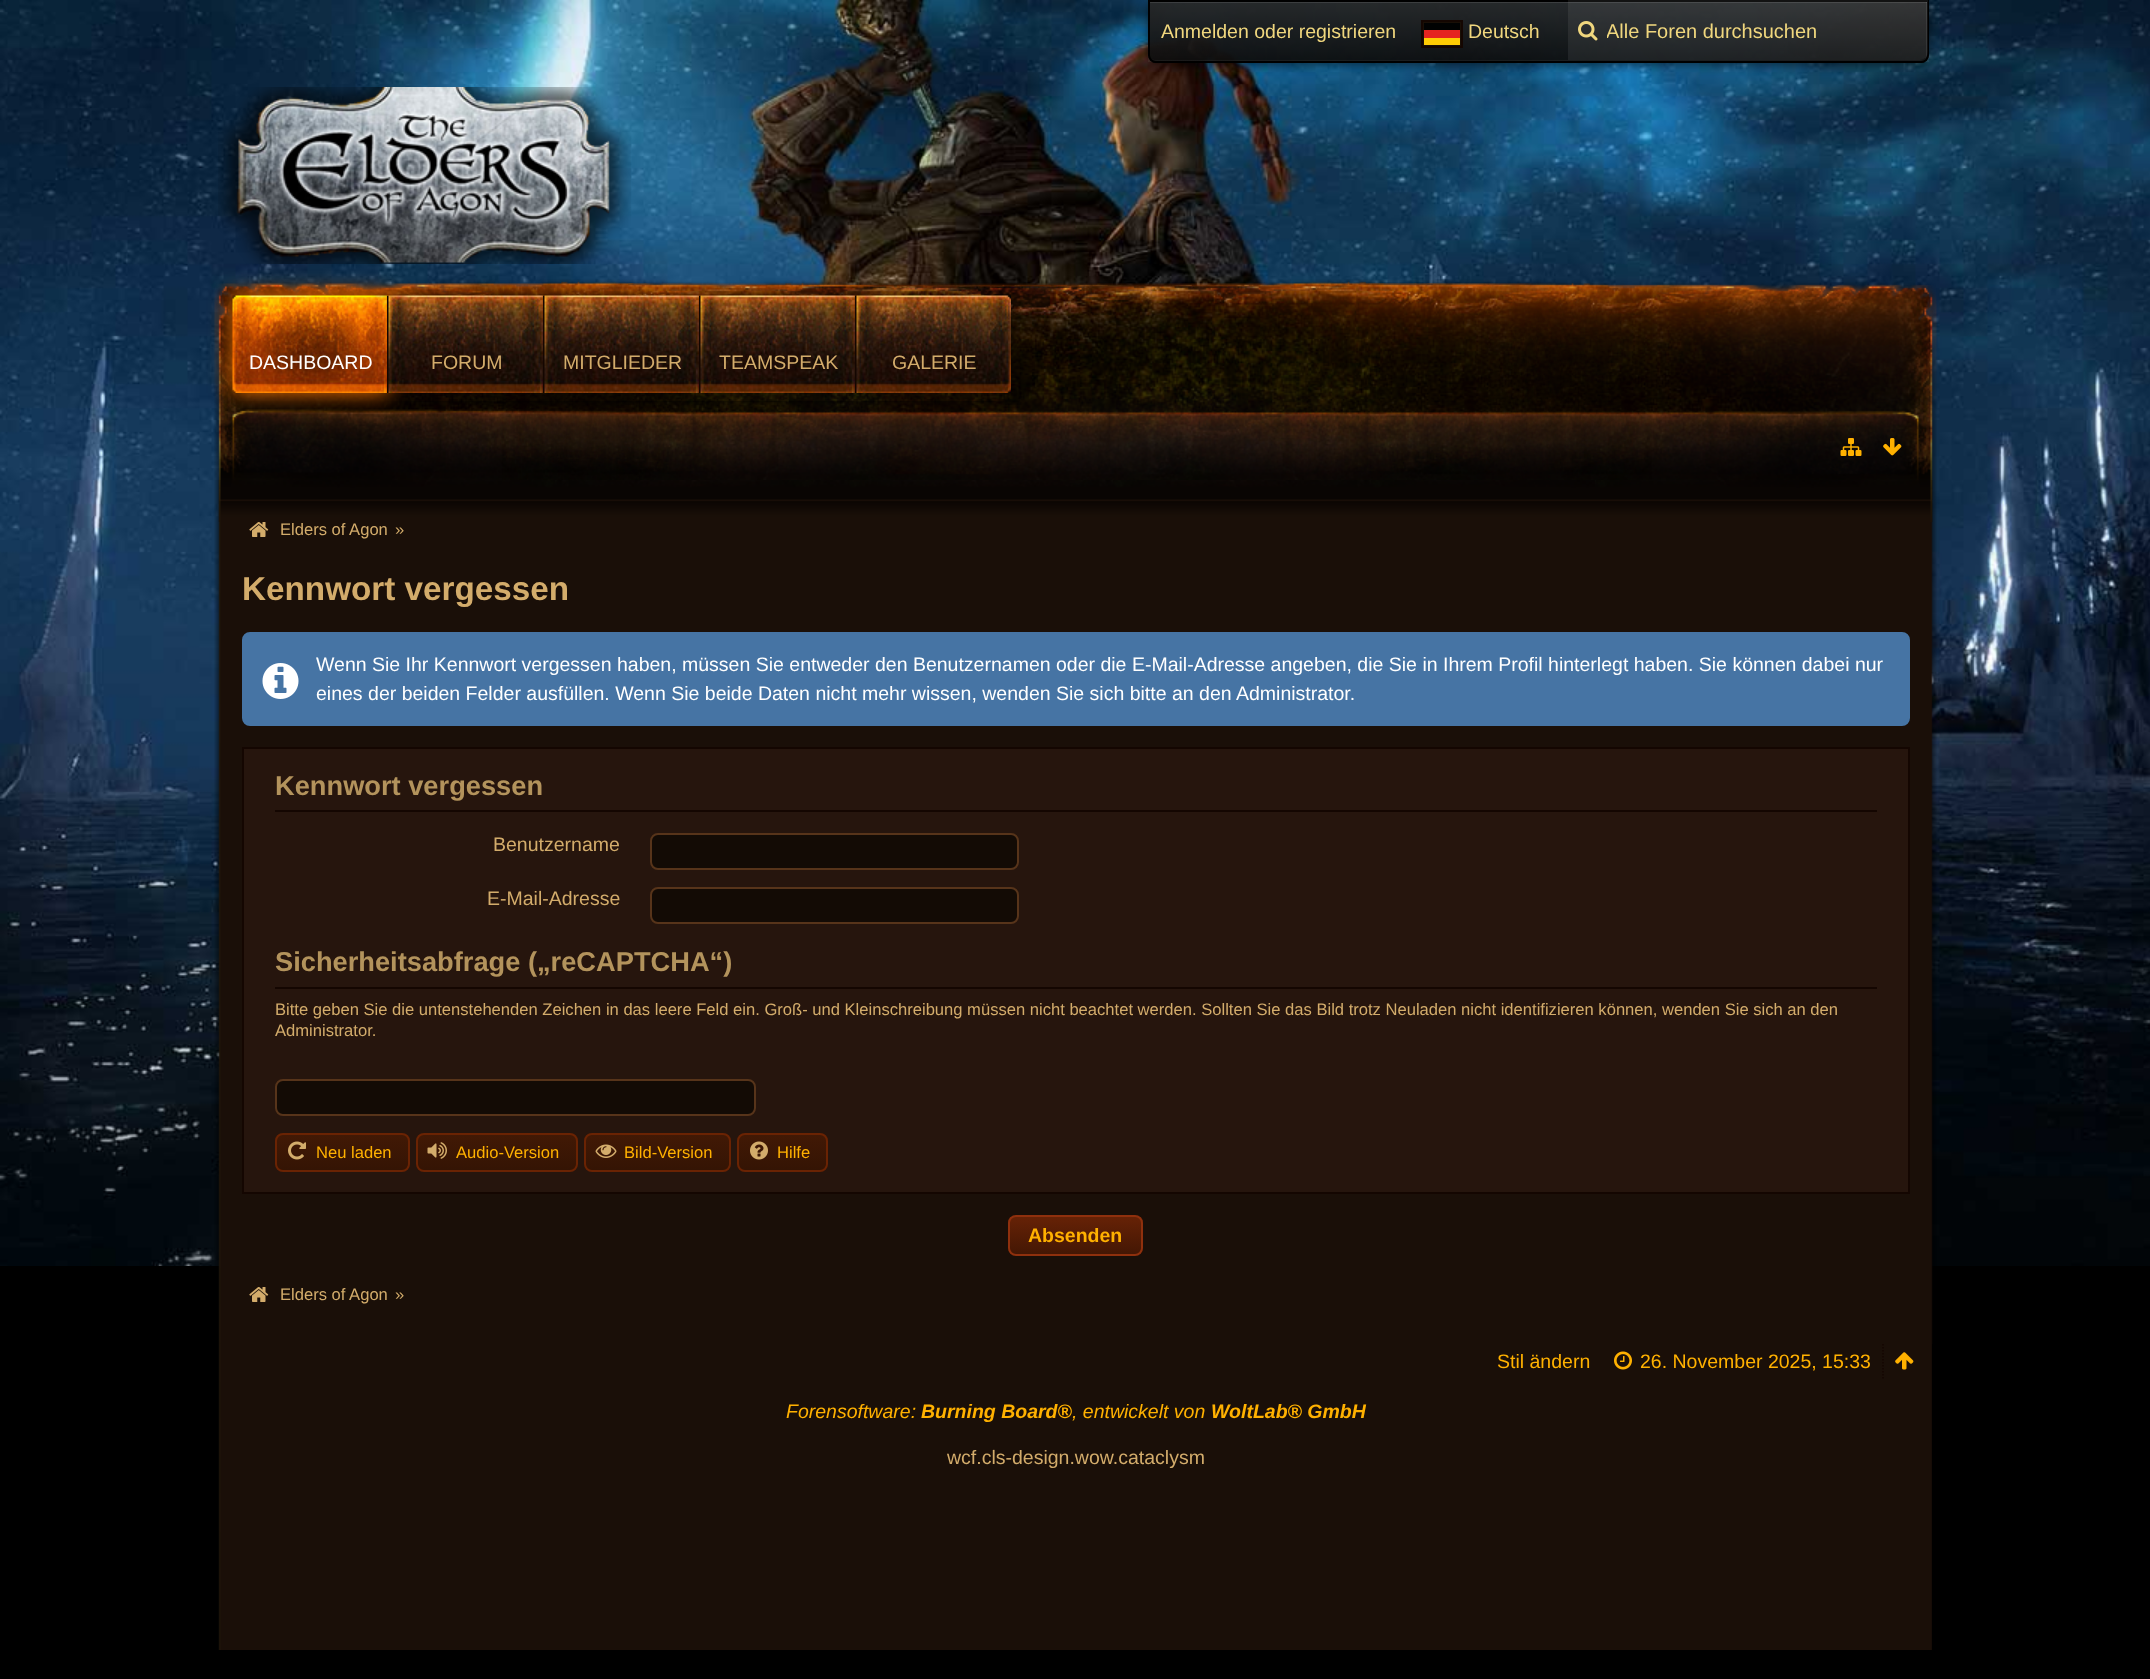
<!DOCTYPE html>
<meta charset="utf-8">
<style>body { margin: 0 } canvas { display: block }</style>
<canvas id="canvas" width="2150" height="1679"></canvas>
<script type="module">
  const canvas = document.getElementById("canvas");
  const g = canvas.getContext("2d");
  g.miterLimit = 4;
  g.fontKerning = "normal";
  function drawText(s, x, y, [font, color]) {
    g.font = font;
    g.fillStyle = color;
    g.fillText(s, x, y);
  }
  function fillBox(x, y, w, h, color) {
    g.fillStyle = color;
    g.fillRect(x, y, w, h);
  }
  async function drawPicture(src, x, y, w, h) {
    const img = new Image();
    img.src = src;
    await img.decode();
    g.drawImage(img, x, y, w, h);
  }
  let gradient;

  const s1 = ["19.5px Liberation Sans", "#F0D77E"];
  const s2 = ["20px Liberation Sans", "#F0D77E"];
  const s3 = ["19.5px Liberation Sans", "#FFFFFF"];
  const s4 = ["19.5px Liberation Sans", "#D3AC6B"];
  const s5 = ["16.58px Liberation Sans", "#D3AC6B"];
  const s6 = ["bold 33.25px Liberation Sans", "#D3AC6B"];
  const s7 = ["bold 27.25px Liberation Sans", "#B3935C"];
  const s8 = ["16.58px Liberation Sans", "#FFB100"];
  const s9 = ["bold 19.5px Liberation Sans", "#FFB100"];
  const s10 = ["19.5px Liberation Sans", "#FFB100"];
  const s11 = ["italic 19.5px Liberation Sans", "#FFB100"];
  const s12 = ["italic bold 19.5px Liberation Sans", "#FFB100"];

  fillBox(0, 0, 2150, 1679, "#000000");
  await drawPicture("pic1.png", 0, 0, 2150, 1266);
  await drawPicture("pic2.png", 214, 279, 1723, 201);
  g.save();
  g.beginPath();
  g.moveTo(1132, 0);
  g.lineTo(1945, 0);
  g.lineTo(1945, 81);
  g.lineTo(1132, 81);
  g.closePath();
  g.moveTo(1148, 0);
  g.lineTo(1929, 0);
  g.lineTo(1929, 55);
  g.bezierCurveTo(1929, 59.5, 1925.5, 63, 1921, 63);
  g.lineTo(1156, 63);
  g.bezierCurveTo(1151.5, 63, 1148, 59.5, 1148, 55);
  g.closePath();
  g.clip("evenodd");
  g.fillStyle = "rgba(0, 0, 0, 0.5)";
  g.filter = "blur(5px)";
  g.beginPath();
  g.roundRect(1148, 2, 781, 63, 8);
  g.fill();
  g.filter = "none";
  g.restore();
  g.fillStyle = "rgba(0, 0, 0, 0.95)";
  g.beginPath();
  g.roundRect(1148, 0, 781, 63, [0, 0, 8, 8]);
  g.fill();
  gradient = g.createLinearGradient(1538, 1.5, 1538, 62);
  gradient.addColorStop(0, "rgba(255, 255, 255, 0.15)");
  gradient.addColorStop(1, "rgba(255, 255, 255, 0.05)");
  g.fillStyle = gradient;
  g.fillRect(1148, 2, 781, 60);
  g.fillStyle = "rgba(255, 255, 255, 0.08)";
  g.beginPath();
  g.moveTo(1920, 62);
  g.lineTo(1922, 62);
  g.bezierCurveTo(1925, 62, 1928, 59, 1928, 56);
  g.lineTo(1928, 2);
  g.lineTo(1926, 2);
  g.lineTo(1926, 56);
  g.bezierCurveTo(1926, 59, 1923, 62, 1920, 62);
  g.closePath();
  g.fill();
  g.fillStyle = "rgba(255, 255, 255, 0.05)";
  g.beginPath();
  g.moveTo(1149, 54);
  g.lineTo(1149, 56);
  g.bezierCurveTo(1149, 59, 1152, 62, 1155, 62);
  g.lineTo(1922, 62);
  g.bezierCurveTo(1925, 62, 1928, 59, 1928, 56);
  g.lineTo(1928, 54);
  g.bezierCurveTo(1928, 57, 1925, 60, 1922, 60);
  g.lineTo(1155, 60);
  g.bezierCurveTo(1152, 60, 1149, 57, 1149, 54);
  g.closePath();
  g.fill();
  fillBox(1149, 2, 779, 1, "rgba(255, 255, 255, 0.1)");
  g.beginPath();
  g.roundRect(1149, 1, 779, 61, [0, 0, 7, 7]);
  g.strokeStyle = "#000000";
  g.lineWidth = 2;
  g.stroke();
  drawText("Anmelden oder registrieren", 1161, 38, s1);
  g.fillStyle = "#190F06";
  g.beginPath();
  g.rect(1422, 21, 40, 26);
  g.fill();
  g.strokeStyle = "#140601";
  g.stroke();
  fillBox(1424, 23, 36, 7, "#010202");
  fillBox(1424, 30, 36, 8, "#E52420");
  fillBox(1424, 38, 36, 7, "#FFCC04");
  drawText("Deutsch", 1468, 38, s1);
  g.fillStyle = "rgba(255, 255, 255, 0.07)";
  g.beginPath();
  g.roundRect(1568, 0, 360, 60, [0, 0, 8, 0]);
  g.fill();
  await drawPicture("pic3.png", 1578, 21, 20, 20);
  g.save();
  g.beginPath();
  g.rect(1607, 20, 283, 22);
  g.clip();
  drawText("Alle Foren durchsuchen", 1606, 38, s2);
  g.restore();
  await drawPicture("pic4.png", 218, 87, 413, 177);
  g.save();
  g.beginPath();
  g.moveTo(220, 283);
  g.lineTo(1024, 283);
  g.lineTo(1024, 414);
  g.lineTo(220, 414);
  g.closePath();
  g.moveTo(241, 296);
  g.lineTo(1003, 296);
  g.bezierCurveTo(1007.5, 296, 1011, 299.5, 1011, 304);
  g.lineTo(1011, 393);
  g.bezierCurveTo(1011, 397.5, 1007.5, 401, 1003, 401);
  g.lineTo(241, 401);
  g.bezierCurveTo(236.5, 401, 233, 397.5, 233, 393);
  g.lineTo(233, 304);
  g.bezierCurveTo(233, 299.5, 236.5, 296, 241, 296);
  g.closePath();
  g.clip("evenodd");
  g.fillStyle = "rgba(0, 0, 0, 0.7)";
  g.filter = "blur(4px)";
  g.beginPath();
  g.roundRect(233, 296, 778, 105, 8);
  g.fill();
  g.filter = "none";
  g.restore();
  g.fillStyle = "#FF7501";
  g.filter = "blur(11px)";
  g.beginPath();
  g.rect(233, 296, 156, 97);
  g.fill();
  g.filter = "none";
  await drawPicture("pic5.png", 232, 295, 156, 98);
  fillBox(387, 296, 2, 97, "#140601");
  drawText("DASHBOARD", 249, 369, s3);
  await drawPicture("pic6.png", 388, 295, 156, 98);
  fillBox(543, 296, 2, 97, "#140601");
  drawText("FORUM", 431, 369, s4);
  await drawPicture("pic7.png", 544, 295, 156, 98);
  fillBox(699, 296, 2, 97, "#140601");
  drawText("MITGLIEDER", 563, 369, s4);
  await drawPicture("pic8.png", 700, 295, 156, 98);
  fillBox(855, 296, 2, 97, "#140601");
  drawText("TEAMSPEAK", 719, 369, s4);
  await drawPicture("pic9.png", 856, 295, 155, 98);
  drawText("GALERIE", 892, 369, s4);
  await drawPicture("pic10.png", 1840, 438, 22, 18);
  await drawPicture("pic11.png", 1883, 438, 19, 18);
  await drawPicture("pic12.png", 214, 480, 1723, 864);
  await drawPicture("pic13.png", 249, 522, 20, 15);
  drawText("Elders of Agon", 280, 535, s5);
  drawText("»", 395, 535, s5);
  drawText("Kennwort vergessen", 242, 600, s6);
  g.fillStyle = "#4674A4";
  g.beginPath();
  g.roundRect(243, 633, 1666, 92, 7);
  g.fill();
  g.strokeStyle = "#4674A4";
  g.stroke();
  await drawPicture("pic14.png", 262, 663, 37, 36);
  drawText("Wenn Sie Ihr Kennwort vergessen haben, müssen Sie entweder den Benutzernamen oder die E-Mail-Adresse angeben, die Sie in Ihrem Profil hinterlegt haben. Sie können dabei nur", 316, 671, s3);
  drawText("eines der beiden Felder ausfüllen. Wenn Sie beide Daten nicht mehr wissen, wenden Sie sich bitte an den Administrator.", 316, 700, s3);
  g.fillStyle = "#26150D";
  g.beginPath();
  g.rect(243, 748, 1666, 445);
  g.fill();
  g.strokeStyle = "#140601";
  g.stroke();
  fillBox(275, 810, 1602, 2, "#140601");
  drawText("Kennwort vergessen", 275, 795, s7);
  drawText("Benutzername", 493, 851, s4);
  g.fillStyle = "#130B05";
  g.beginPath();
  g.roundRect(651, 834, 367, 35, 7);
  g.fill();
  g.strokeStyle = "#57341A";
  g.stroke();
  drawText("E-Mail-Adresse", 487, 905, s4);
  g.fillStyle = "#130B05";
  g.beginPath();
  g.roundRect(651, 888, 367, 35, 7);
  g.fill();
  g.stroke();
  fillBox(275, 987, 1602, 2, "#140601");
  drawText("Sicherheitsabfrage („reCAPTCHA“)", 275, 971, s7);
  drawText("Bitte geben Sie die untenstehenden Zeichen in das leere Feld ein. Groß- und Kleinschreibung müssen nicht beachtet werden. Sollten Sie das Bild trotz Neuladen nicht identifizieren können, wenden Sie sich an den", 275, 1015, s5);
  drawText("Administrator.", 275, 1036, s5);
  g.fillStyle = "#130B05";
  g.beginPath();
  g.roundRect(276, 1080, 479, 35, 7);
  g.fill();
  g.stroke();
  g.save();
  g.beginPath();
  g.roundRect(275, 1133, 135, 39, 8);
  g.clip();
  gradient = g.createLinearGradient(342, 1134, 342, 1170);
  gradient.addColorStop(0, "#421905");
  gradient.addColorStop(1, "#341404");
  g.fillStyle = gradient;
  g.fillRect(275, 1134, 135, 36);
  g.restore();
  g.beginPath();
  g.roundRect(276, 1134, 133, 37, 7);
  g.strokeStyle = "#6A2303";
  g.stroke();
  await drawPicture("pic15.png", 288, 1141, 18, 19);
  drawText("Neu laden", 316, 1158, s8);
  g.save();
  g.beginPath();
  g.roundRect(416, 1133, 162, 39, 8);
  g.clip();
  gradient = g.createLinearGradient(497, 1134, 497, 1170);
  gradient.addColorStop(0, "#421905");
  gradient.addColorStop(1, "#341404");
  g.fillStyle = gradient;
  g.fillRect(416, 1134, 162, 36);
  g.restore();
  g.beginPath();
  g.roundRect(417, 1134, 160, 37, 7);
  g.stroke();
  await drawPicture("pic16.png", 427, 1142, 20, 17);
  drawText("Audio-Version", 456, 1158, s8);
  g.save();
  g.beginPath();
  g.roundRect(584, 1133, 147, 39, 8);
  g.clip();
  gradient = g.createLinearGradient(657, 1134, 657, 1170);
  gradient.addColorStop(0, "#421905");
  gradient.addColorStop(1, "#341404");
  g.fillStyle = gradient;
  g.fillRect(584, 1134, 147, 36);
  g.restore();
  g.beginPath();
  g.roundRect(585, 1134, 145, 37, 7);
  g.stroke();
  await drawPicture("pic17.png", 595, 1144, 22, 14);
  drawText("Bild-Version", 624, 1158, s8);
  g.save();
  g.beginPath();
  g.roundRect(737, 1133, 91, 39, 8);
  g.clip();
  gradient = g.createLinearGradient(782, 1134, 782, 1170);
  gradient.addColorStop(0, "#421905");
  gradient.addColorStop(1, "#341404");
  g.fillStyle = gradient;
  g.fillRect(737, 1134, 91, 36);
  g.restore();
  g.beginPath();
  g.roundRect(738, 1134, 89, 37, 7);
  g.stroke();
  await drawPicture("pic18.png", 750, 1141, 18, 19);
  drawText("Hilfe", 777, 1158, s8);
  g.save();
  g.beginPath();
  g.roundRect(1008, 1215, 135, 41, 8);
  g.clip();
  gradient = g.createLinearGradient(1076, 1217, 1076, 1254);
  gradient.addColorStop(0, "#662206");
  gradient.addColorStop(1, "#441704");
  g.fillStyle = gradient;
  g.fillRect(1008, 1217, 135, 37);
  g.restore();
  g.beginPath();
  g.roundRect(1009, 1216, 133, 39, 7);
  g.strokeStyle = "#8F300D";
  g.stroke();
  drawText("Absenden", 1028, 1242, s9);
  await drawPicture("pic13.png", 249, 1287, 20, 15);
  drawText("Elders of Agon", 280, 1300, s5);
  drawText("»", 395, 1300, s5);
  await drawPicture("pic19.png", 218, 1344, 1714, 306);
  g.beginPath();
  g.moveTo(1883, 1344);
  g.lineTo(1883, 1378.5);
  g.strokeStyle = "#140601";
  g.lineWidth = 1.5;
  g.setLineDash([1.5, 1.5]);
  g.stroke();
  drawText("Stil ändern", 1497, 1368, s10);
  await drawPicture("pic20.png", 1614, 1351, 18, 19);
  drawText("26. November 2025, 15:33", 1640, 1368, s10);
  await drawPicture("pic21.png", 1895, 1352, 19, 18);
  drawText("Forensoftware:", 786, 1418, s11);
  drawText("Burning Board®", 921, 1418, s12);
  drawText(", entwickelt von", 1072, 1418, s11);
  drawText("WoltLab® GmbH", 1211, 1418, s12);
  drawText("wcf.cls-design.wow.cataclysm", 947, 1464, s4);
</script>
